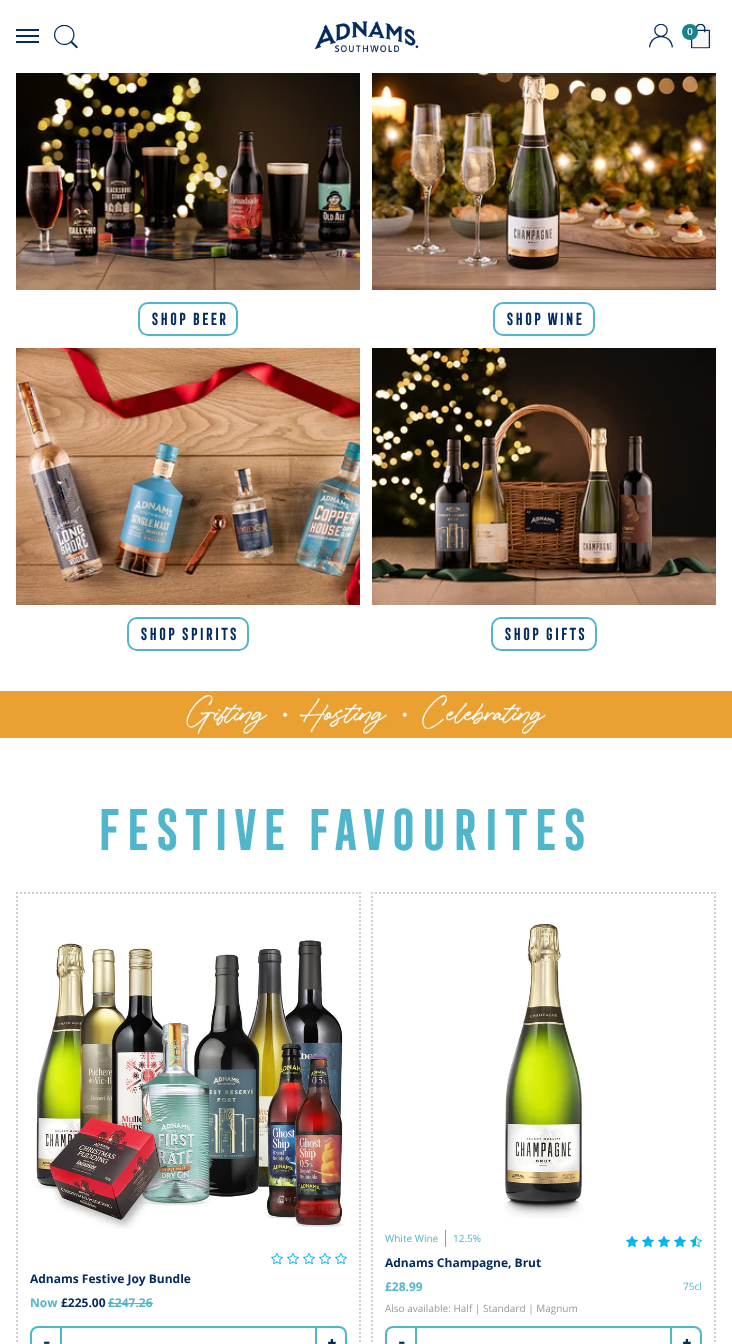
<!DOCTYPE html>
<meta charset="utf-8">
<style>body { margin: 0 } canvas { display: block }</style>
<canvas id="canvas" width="732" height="1344"></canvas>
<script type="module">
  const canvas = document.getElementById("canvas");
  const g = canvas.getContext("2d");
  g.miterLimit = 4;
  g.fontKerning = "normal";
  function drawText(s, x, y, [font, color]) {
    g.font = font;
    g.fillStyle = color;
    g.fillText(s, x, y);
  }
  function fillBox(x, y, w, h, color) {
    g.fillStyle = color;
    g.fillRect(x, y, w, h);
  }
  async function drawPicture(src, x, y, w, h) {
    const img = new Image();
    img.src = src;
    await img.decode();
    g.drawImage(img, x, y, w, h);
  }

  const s1 = ["bold 10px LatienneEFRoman", "#FFFFFF"];
  const s2 = ["bold 16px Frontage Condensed", "#042B60"];
  const s3 = ["bold 54px Frontage Condensed", "#51B6CC"];
  const s4 = ["bold 12px Open Sans", "#042B60"];
  const s5 = ["bold 12px Open Sans", "#51B6CC"];
  const s6 = ["bold 19px Frontage Condensed", "#042B60"];
  const s7 = ["10px Open Sans", "#51B6CC"];
  const s8 = ["10px Open Sans", "#999999"];

  fillBox(0, 0, 732, 1344, "#FFFFFF");
  fillBox(16, 29, 23, 2, "#042B60");
  fillBox(16, 35, 23, 2, "#042B60");
  fillBox(16, 41, 23, 2, "#042B60");
  await drawPicture("pic1.png", 54, 24, 24, 25);
  await drawPicture("pic2.png", 314, 21, 105, 32);
  await drawPicture("pic3.png", 649, 23, 24, 25);
  fillBox(688, 24, 24, 24, "#F8F8F8");
  await drawPicture("pic4.png", 691, 23, 19, 26);
  g.fillStyle = "#19838B";
  g.beginPath();
  g.arc(690, 32, 8, 0, Math.PI * 2);
  g.fill();
  drawText("0", 687, 35, s1);
  await drawPicture("pic5.png", 16, 73, 344, 217);
  g.beginPath();
  g.roundRect(139, 303, 98, 32, 9);
  g.strokeStyle = "#51B6CC";
  g.lineWidth = 2;
  g.stroke();
  drawText("SHOP BEER", 150, 325, s2);
  await drawPicture("pic6.png", 372, 73, 344, 217);
  g.beginPath();
  g.roundRect(494, 303, 100, 32, 9);
  g.stroke();
  drawText("SHOP WINE", 505, 325, s2);
  await drawPicture("pic7.png", 16, 348, 344, 257);
  g.beginPath();
  g.roundRect(128, 618, 120, 32, 9);
  g.stroke();
  drawText("SHOP SPIRITS", 139, 640, s2);
  await drawPicture("pic8.png", 372, 348, 344, 257);
  g.beginPath();
  g.roundRect(492, 618, 104, 32, 9);
  g.stroke();
  drawText("SHOP GIFTS", 503, 640, s2);
  await drawPicture("pic9.png", 0, 691, 732, 47);
  drawText("FESTIVE FAVOURITES", 93, 850, s3);
  g.beginPath();
  g.moveTo(16, 893);
  g.lineTo(361, 893);
  g.strokeStyle = "#D0D0D0";
  g.setLineDash([2, 2]);
  g.stroke();
  g.beginPath();
  g.moveTo(360, 892);
  g.lineTo(360, 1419);
  g.stroke();
  g.beginPath();
  g.moveTo(17, 892);
  g.lineTo(17, 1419);
  g.stroke();
  await drawPicture("pic10.png", 34, 940, 311, 289);
  await drawPicture("pic11.png", 271, 1252, 12, 13);
  await drawPicture("pic11.png", 287, 1252, 12, 13);
  await drawPicture("pic11.png", 303, 1252, 12, 13);
  await drawPicture("pic11.png", 319, 1252, 12, 13);
  await drawPicture("pic11.png", 335, 1252, 12, 13);
  drawText("Adnams Festive Joy Bundle", 30, 1283, s4);
  drawText("Now", 30, 1307, s5);
  drawText("£225.00", 61, 1307, s4);
  drawText("£247.26", 108, 1307, s5);
  fillBox(108, 1303, 45, 1, "#51B6CC");
  g.beginPath();
  g.roundRect(31, 1327, 315, 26, 7);
  g.strokeStyle = "#51B6CC";
  g.setLineDash([]);
  g.stroke();
  fillBox(60, 1328, 2, 16, "#51B6CC");
  drawText("-", 42, 1350, s6);
  fillBox(315, 1328, 2, 16, "#51B6CC");
  drawText("+", 326, 1350, s6);
  g.beginPath();
  g.moveTo(371, 893);
  g.lineTo(716, 893);
  g.strokeStyle = "#D0D0D0";
  g.setLineDash([2, 2]);
  g.stroke();
  g.beginPath();
  g.moveTo(715, 892);
  g.lineTo(715, 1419);
  g.stroke();
  g.beginPath();
  g.moveTo(372, 892);
  g.lineTo(372, 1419);
  g.stroke();
  await drawPicture("pic12.png", 504, 923, 80, 295);
  fillBox(445, 1230, 1, 17, "#51B6CC");
  drawText("White Wine", 385, 1242, s7);
  drawText("12.5%", 453, 1242, s7);
  await drawPicture("pic13.png", 626, 1235, 12, 13);
  await drawPicture("pic13.png", 642, 1235, 12, 13);
  await drawPicture("pic13.png", 658, 1235, 12, 13);
  await drawPicture("pic13.png", 674, 1235, 12, 13);
  await drawPicture("pic14.png", 690, 1235, 12, 13);
  drawText("Adnams Champagne, Brut", 385, 1267, s4);
  drawText("£28.99", 385, 1291, s5);
  drawText("75cl", 683, 1290, s7);
  drawText("Also available: Half | Standard | Magnum", 385, 1312, s8);
  g.beginPath();
  g.roundRect(386, 1327, 315, 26, 7);
  g.strokeStyle = "#51B6CC";
  g.setLineDash([]);
  g.stroke();
  fillBox(415, 1328, 2, 16, "#51B6CC");
  drawText("-", 397, 1350, s6);
  fillBox(670, 1328, 2, 16, "#51B6CC");
  drawText("+", 681, 1350, s6);
</script>
